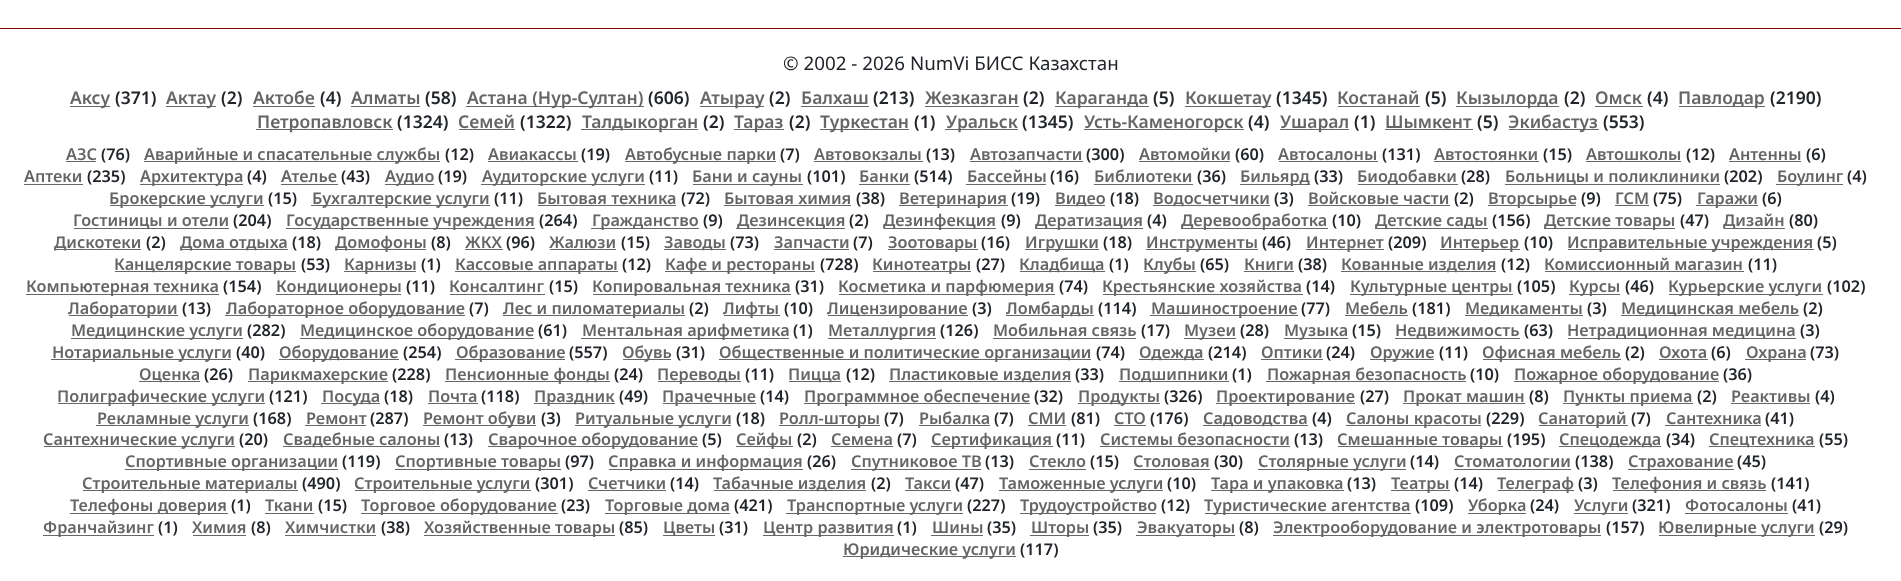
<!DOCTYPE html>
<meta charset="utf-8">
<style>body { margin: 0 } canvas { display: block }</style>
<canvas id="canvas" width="1901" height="581"></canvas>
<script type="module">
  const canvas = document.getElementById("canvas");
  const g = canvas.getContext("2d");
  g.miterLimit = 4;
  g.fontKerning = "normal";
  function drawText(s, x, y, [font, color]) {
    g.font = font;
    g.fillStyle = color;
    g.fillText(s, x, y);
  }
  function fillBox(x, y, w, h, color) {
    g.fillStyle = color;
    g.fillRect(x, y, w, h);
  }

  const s1 = ["18.75px Noto Sans", "#212529"];
  const s2 = ["600 17.5px Noto Sans", "#656565"];
  const s3 = ["600 17.5px Noto Sans", "#212529"];
  const s4 = ["600 16.25px Noto Sans", "#656565"];
  const s5 = ["600 16.25px Noto Sans", "#212529"];

  fillBox(0, 0, 1901, 581, "#FFFFFF");
  fillBox(0, 28, 1901, 1, "#880000");
  drawText("© 2002 - 2026 NumVi БИСС Казахстан", 783, 70, s1);
  fillBox(70, 106, 40, 1, "#666666");
  drawText("Аксу", 70, 104, s2);
  drawText("(371)", 115, 104, s3);
  fillBox(166, 106, 50, 1, "#666666");
  drawText("Актау", 166, 104, s2);
  drawText("(2)", 221, 104, s3);
  drawText("Актобе", 253, 104, s2);
  fillBox(253, 106, 62, 1, "#666666");
  drawText("(4)", 320, 104, s3);
  drawText("Алматы", 351, 104, s2);
  fillBox(351, 106, 69, 1, "#666666");
  drawText("(58)", 425, 104, s3);
  fillBox(466, 106, 178, 1, "#666666");
  drawText("Астана (Нур-Султан)", 467, 104, s2);
  drawText("(606)", 648, 104, s3);
  fillBox(700, 106, 64, 1, "#666666");
  drawText("Атырау", 700, 104, s2);
  drawText("(2)", 769, 104, s3);
  drawText("Балхаш", 801, 104, s2);
  fillBox(801, 106, 68, 1, "#666666");
  drawText("(213)", 873, 104, s3);
  drawText("Жезказган", 925, 104, s2);
  fillBox(925, 106, 94, 1, "#666666");
  drawText("(2)", 1023, 104, s3);
  fillBox(1055, 106, 94, 1, "#666666");
  drawText("Караганда", 1055, 104, s2);
  drawText("(5)", 1153, 104, s3);
  fillBox(1185, 106, 86, 1, "#666666");
  drawText("Кокшетау", 1185, 104, s2);
  drawText("(1345)", 1276, 104, s3);
  drawText("Костанай", 1337, 104, s2);
  fillBox(1338, 106, 82, 1, "#666666");
  drawText("(5)", 1425, 104, s3);
  fillBox(1456, 106, 103, 1, "#666666");
  drawText("Кызылорда", 1456, 104, s2);
  drawText("(2)", 1564, 104, s3);
  drawText("Омск", 1595, 104, s2);
  fillBox(1595, 106, 48, 1, "#666666");
  drawText("(4)", 1647, 104, s3);
  fillBox(1679, 106, 86, 1, "#666666");
  drawText("Павлодар", 1678, 104, s2);
  drawText("(2190)", 1770, 104, s3);
  fillBox(256, 129, 137, 1, "#666666");
  drawText("Петропавловск", 257, 128, s2);
  drawText("(1324)", 397, 128, s3);
  drawText("Семей", 458, 128, s2);
  fillBox(459, 129, 56, 1, "#666666");
  drawText("(1322)", 520, 128, s3);
  fillBox(581, 129, 117, 1, "#666666");
  drawText("Талдыкорган", 582, 128, s2);
  drawText("(2)", 703, 128, s3);
  fillBox(734, 129, 50, 1, "#666666");
  drawText("Тараз", 734, 128, s2);
  drawText("(2)", 789, 128, s3);
  fillBox(820, 129, 89, 1, "#666666");
  drawText("Туркестан", 820, 128, s2);
  drawText("(1)", 914, 128, s3);
  fillBox(945, 129, 73, 1, "#666666");
  drawText("Уральск", 946, 128, s2);
  drawText("(1345)", 1022, 128, s3);
  fillBox(1084, 129, 160, 1, "#666666");
  drawText("Усть-Каменогорск", 1084, 128, s2);
  drawText("(4)", 1248, 128, s3);
  fillBox(1280, 129, 69, 1, "#666666");
  drawText("Ушарал", 1280, 128, s2);
  drawText("(1)", 1354, 128, s3);
  drawText("Шымкент", 1385, 128, s2);
  fillBox(1385, 129, 88, 1, "#666666");
  drawText("(5)", 1477, 128, s3);
  fillBox(1509, 129, 90, 1, "#666666");
  drawText("Экибастуз", 1508, 128, s2);
  drawText("(553)", 1603, 128, s3);
  drawText("АЗС", 66, 160, s4);
  fillBox(66, 161, 30, 1, "#666666");
  drawText("(76)", 101, 160, s5);
  fillBox(144, 161, 296, 1, "#666666");
  drawText("Аварийные и спасательные службы", 144, 160, s4);
  drawText("(12)", 445, 160, s5);
  drawText("Авиакассы", 488, 160, s4);
  fillBox(488, 161, 90, 1, "#666666");
  drawText("(19)", 581, 160, s5);
  fillBox(625, 161, 151, 1, "#666666");
  drawText("Автобусные парки", 625, 160, s4);
  drawText("(7)", 780, 160, s5);
  drawText("Автовокзалы", 814, 160, s4);
  fillBox(814, 161, 109, 1, "#666666");
  drawText("(13)", 926, 160, s5);
  drawText("Автозапчасти", 970, 160, s4);
  fillBox(970, 161, 113, 1, "#666666");
  drawText("(300)", 1086, 160, s5);
  drawText("Автомойки", 1139, 160, s4);
  fillBox(1139, 161, 91, 1, "#666666");
  drawText("(60)", 1235, 160, s5);
  drawText("Автосалоны", 1278, 160, s4);
  fillBox(1279, 161, 99, 1, "#666666");
  drawText("(131)", 1382, 160, s5);
  drawText("Автостоянки", 1434, 160, s4);
  fillBox(1434, 161, 105, 1, "#666666");
  drawText("(15)", 1543, 160, s5);
  drawText("Автошколы", 1586, 160, s4);
  fillBox(1586, 161, 95, 1, "#666666");
  drawText("(12)", 1686, 160, s5);
  drawText("Антенны", 1729, 160, s4);
  fillBox(1729, 161, 72, 1, "#666666");
  drawText("(6)", 1806, 160, s5);
  drawText("Аптеки", 24, 182, s4);
  fillBox(24, 184, 59, 1, "#666666");
  drawText("(235)", 87, 182, s5);
  fillBox(140, 184, 103, 1, "#666666");
  drawText("Архитектура", 140, 182, s4);
  drawText("(4)", 247, 182, s5);
  drawText("Ателье", 281, 182, s4);
  fillBox(281, 184, 57, 1, "#666666");
  drawText("(43)", 341, 182, s5);
  fillBox(385, 184, 49, 1, "#666666");
  drawText("Аудио", 385, 182, s4);
  drawText("(19)", 438, 182, s5);
  fillBox(481, 184, 164, 1, "#666666");
  drawText("Аудиторские услуги", 482, 182, s4);
  drawText("(11)", 649, 182, s5);
  fillBox(693, 184, 110, 1, "#666666");
  drawText("Бани и сауны", 692, 182, s4);
  drawText("(101)", 807, 182, s5);
  drawText("Банки", 859, 182, s4);
  fillBox(859, 184, 51, 1, "#666666");
  drawText("(514)", 914, 182, s5);
  drawText("Бассейны", 967, 182, s4);
  fillBox(966, 184, 80, 1, "#666666");
  drawText("(16)", 1050, 182, s5);
  drawText("Библиотеки", 1094, 182, s4);
  fillBox(1094, 184, 99, 1, "#666666");
  drawText("(36)", 1197, 182, s5);
  fillBox(1240, 184, 70, 1, "#666666");
  drawText("Бильярд", 1240, 182, s4);
  drawText("(33)", 1314, 182, s5);
  fillBox(1358, 184, 100, 1, "#666666");
  drawText("Биодобавки", 1357, 182, s4);
  drawText("(28)", 1461, 182, s5);
  fillBox(1505, 184, 215, 1, "#666666");
  drawText("Больницы и поликлиники", 1505, 182, s4);
  drawText("(202)", 1724, 182, s5);
  fillBox(1776, 184, 67, 1, "#666666");
  drawText("Боулинг", 1777, 182, s4);
  drawText("(4)", 1847, 182, s5);
  fillBox(110, 205, 154, 1, "#666666");
  drawText("Брокерские услуги", 109, 204, s4);
  drawText("(15)", 268, 204, s5);
  fillBox(311, 205, 179, 1, "#666666");
  drawText("Бухгалтерские услуги", 312, 204, s4);
  drawText("(11)", 494, 204, s5);
  drawText("Бытовая техника", 537, 204, s4);
  fillBox(538, 205, 138, 1, "#666666");
  drawText("(72)", 681, 204, s5);
  drawText("Бытовая химия", 724, 204, s4);
  fillBox(724, 205, 127, 1, "#666666");
  drawText("(38)", 856, 204, s5);
  fillBox(899, 205, 109, 1, "#666666");
  drawText("Ветеринария", 899, 204, s4);
  drawText("(19)", 1011, 204, s5);
  fillBox(1055, 205, 50, 1, "#666666");
  drawText("Видео", 1055, 204, s4);
  drawText("(18)", 1110, 204, s5);
  fillBox(1153, 205, 117, 1, "#666666");
  drawText("Водосчетчики", 1153, 204, s4);
  drawText("(3)", 1274, 204, s5);
  drawText("Войсковые части", 1308, 204, s4);
  fillBox(1308, 205, 142, 1, "#666666");
  drawText("(2)", 1454, 204, s5);
  fillBox(1488, 205, 88, 1, "#666666");
  drawText("Вторсырье", 1488, 204, s4);
  drawText("(9)", 1581, 204, s5);
  drawText("ГСМ", 1615, 204, s4);
  fillBox(1615, 205, 34, 1, "#666666");
  drawText("(75)", 1653, 204, s5);
  fillBox(1696, 205, 62, 1, "#666666");
  drawText("Гаражи", 1697, 204, s4);
  drawText("(6)", 1762, 204, s5);
  fillBox(74, 228, 155, 1, "#666666");
  drawText("Гостиницы и отели", 73, 226, s4);
  drawText("(204)", 233, 226, s5);
  fillBox(286, 228, 249, 1, "#666666");
  drawText("Государственные учреждения", 286, 226, s4);
  drawText("(264)", 539, 226, s5);
  fillBox(591, 228, 108, 1, "#666666");
  drawText("Гражданство", 592, 226, s4);
  drawText("(9)", 703, 226, s5);
  fillBox(736, 228, 109, 1, "#666666");
  drawText("Дезинсекция", 737, 226, s4);
  drawText("(2)", 849, 226, s5);
  fillBox(884, 228, 112, 1, "#666666");
  drawText("Дезинфекция", 883, 226, s4);
  drawText("(9)", 1001, 226, s5);
  fillBox(1035, 228, 108, 1, "#666666");
  drawText("Дератизация", 1035, 226, s4);
  drawText("(4)", 1147, 226, s5);
  fillBox(1181, 228, 147, 1, "#666666");
  drawText("Деревообработка", 1181, 226, s4);
  drawText("(10)", 1332, 226, s5);
  fillBox(1375, 228, 113, 1, "#666666");
  drawText("Детские сады", 1375, 226, s4);
  drawText("(156)", 1492, 226, s5);
  fillBox(1544, 228, 131, 1, "#666666");
  drawText("Детские товары", 1544, 226, s4);
  drawText("(47)", 1680, 226, s5);
  fillBox(1724, 228, 61, 1, "#666666");
  drawText("Дизайн", 1723, 226, s4);
  drawText("(80)", 1789, 226, s5);
  fillBox(54, 249, 87, 1, "#666666");
  drawText("Дискотеки", 54, 248, s4);
  drawText("(2)", 146, 248, s5);
  fillBox(180, 249, 108, 1, "#666666");
  drawText("Дома отдыха", 180, 248, s4);
  drawText("(18)", 292, 248, s5);
  fillBox(335, 249, 91, 1, "#666666");
  drawText("Домофоны", 335, 248, s4);
  drawText("(8)", 431, 248, s5);
  drawText("ЖКХ", 465, 248, s4);
  fillBox(465, 249, 38, 1, "#666666");
  drawText("(96)", 506, 248, s5);
  drawText("Жалюзи", 549, 248, s4);
  fillBox(550, 249, 66, 1, "#666666");
  drawText("(15)", 621, 248, s5);
  fillBox(664, 249, 62, 1, "#666666");
  drawText("Заводы", 664, 248, s4);
  drawText("(73)", 730, 248, s5);
  drawText("Запчасти", 774, 248, s4);
  fillBox(774, 249, 75, 1, "#666666");
  drawText("(7)", 853, 248, s5);
  fillBox(888, 249, 90, 1, "#666666");
  drawText("Зоотовары", 888, 248, s4);
  drawText("(16)", 981, 248, s5);
  fillBox(1025, 249, 74, 1, "#666666");
  drawText("Игрушки", 1025, 248, s4);
  drawText("(18)", 1103, 248, s5);
  fillBox(1146, 249, 112, 1, "#666666");
  drawText("Инструменты", 1146, 248, s4);
  drawText("(46)", 1262, 248, s5);
  fillBox(1306, 249, 78, 1, "#666666");
  drawText("Интернет", 1306, 248, s4);
  drawText("(209)", 1388, 248, s5);
  fillBox(1440, 249, 80, 1, "#666666");
  drawText("Интерьер", 1440, 248, s4);
  drawText("(10)", 1524, 248, s5);
  fillBox(1568, 249, 246, 1, "#666666");
  drawText("Исправительные учреждения", 1567, 248, s4);
  drawText("(5)", 1817, 248, s5);
  fillBox(115, 271, 181, 1, "#666666");
  drawText("Канцелярские товары", 114, 270, s4);
  drawText("(53)", 301, 270, s5);
  fillBox(344, 271, 72, 1, "#666666");
  drawText("Карнизы", 344, 270, s4);
  drawText("(1)", 421, 270, s5);
  fillBox(455, 271, 163, 1, "#666666");
  drawText("Кассовые аппараты", 455, 270, s4);
  drawText("(12)", 622, 270, s5);
  fillBox(665, 271, 150, 1, "#666666");
  drawText("Кафе и рестораны", 665, 270, s4);
  drawText("(728)", 820, 270, s5);
  fillBox(873, 271, 98, 1, "#666666");
  drawText("Кинотеатры", 872, 270, s4);
  drawText("(27)", 976, 270, s5);
  fillBox(1020, 271, 85, 1, "#666666");
  drawText("Кладбища", 1019, 270, s4);
  drawText("(1)", 1109, 270, s5);
  fillBox(1144, 271, 52, 1, "#666666");
  drawText("Клубы", 1143, 270, s4);
  drawText("(65)", 1200, 270, s5);
  drawText("Книги", 1244, 270, s4);
  fillBox(1244, 271, 50, 1, "#666666");
  drawText("(38)", 1298, 270, s5);
  fillBox(1341, 271, 155, 1, "#666666");
  drawText("Кованные изделия", 1341, 270, s4);
  drawText("(12)", 1501, 270, s5);
  drawText("Комиссионный магазин", 1544, 270, s4);
  fillBox(1545, 271, 199, 1, "#666666");
  drawText("(11)", 1748, 270, s5);
  fillBox(26, 294, 193, 1, "#666666");
  drawText("Компьютерная техника", 26, 292, s4);
  drawText("(154)", 223, 292, s5);
  fillBox(276, 294, 125, 1, "#666666");
  drawText("Кондиционеры", 276, 292, s4);
  drawText("(11)", 406, 292, s5);
  drawText("Консалтинг", 449, 292, s4);
  fillBox(450, 294, 95, 1, "#666666");
  drawText("(15)", 549, 292, s5);
  fillBox(593, 294, 198, 1, "#666666");
  drawText("Копировальная техника", 592, 292, s4);
  drawText("(31)", 795, 292, s5);
  fillBox(839, 294, 216, 1, "#666666");
  drawText("Косметика и парфюмерия", 838, 292, s4);
  drawText("(74)", 1059, 292, s5);
  fillBox(1103, 294, 200, 1, "#666666");
  drawText("Крестьянские хозяйства", 1102, 292, s4);
  drawText("(14)", 1306, 292, s5);
  fillBox(1350, 294, 163, 1, "#666666");
  drawText("Культурные центры", 1350, 292, s4);
  drawText("(105)", 1517, 292, s5);
  fillBox(1569, 294, 51, 1, "#666666");
  drawText("Курсы", 1569, 292, s4);
  drawText("(46)", 1625, 292, s5);
  fillBox(1669, 294, 154, 1, "#666666");
  drawText("Курьерские услуги", 1668, 292, s4);
  drawText("(102)", 1827, 292, s5);
  fillBox(69, 315, 109, 1, "#666666");
  drawText("Лаборатории", 68, 314, s4);
  drawText("(13)", 182, 314, s5);
  fillBox(225, 315, 240, 1, "#666666");
  drawText("Лабораторное оборудование", 226, 314, s4);
  drawText("(7)", 469, 314, s5);
  fillBox(503, 315, 182, 1, "#666666");
  drawText("Лес и пиломатериалы", 503, 314, s4);
  drawText("(2)", 689, 314, s5);
  fillBox(724, 315, 56, 1, "#666666");
  drawText("Лифты", 723, 314, s4);
  drawText("(10)", 784, 314, s5);
  fillBox(828, 315, 140, 1, "#666666");
  drawText("Лицензирование", 827, 314, s4);
  drawText("(3)", 972, 314, s5);
  fillBox(1006, 315, 88, 1, "#666666");
  drawText("Ломбарды", 1006, 314, s4);
  drawText("(114)", 1098, 314, s5);
  fillBox(1150, 315, 148, 1, "#666666");
  drawText("Машиностроение", 1151, 314, s4);
  drawText("(77)", 1301, 314, s5);
  drawText("Мебель", 1345, 314, s4);
  fillBox(1345, 315, 63, 1, "#666666");
  drawText("(181)", 1412, 314, s5);
  fillBox(1465, 315, 118, 1, "#666666");
  drawText("Медикаменты", 1465, 314, s4);
  drawText("(3)", 1587, 314, s5);
  fillBox(1621, 315, 178, 1, "#666666");
  drawText("Медицинская мебель", 1621, 314, s4);
  drawText("(2)", 1803, 314, s5);
  fillBox(71, 338, 172, 1, "#666666");
  drawText("Медицинские услуги", 71, 336, s4);
  drawText("(282)", 247, 336, s5);
  fillBox(300, 338, 234, 1, "#666666");
  drawText("Медицинское оборудование", 300, 336, s4);
  drawText("(61)", 538, 336, s5);
  fillBox(581, 338, 208, 1, "#666666");
  drawText("Ментальная арифметика", 582, 336, s4);
  drawText("(1)", 793, 336, s5);
  fillBox(828, 338, 108, 1, "#666666");
  drawText("Металлургия", 828, 336, s4);
  drawText("(126)", 940, 336, s5);
  drawText("Мобильная связь", 993, 336, s4);
  fillBox(993, 338, 143, 1, "#666666");
  drawText("(17)", 1141, 336, s5);
  fillBox(1184, 338, 52, 1, "#666666");
  drawText("Музеи", 1184, 336, s4);
  drawText("(28)", 1240, 336, s5);
  fillBox(1284, 338, 64, 1, "#666666");
  drawText("Музыка", 1284, 336, s4);
  drawText("(15)", 1352, 336, s5);
  fillBox(1395, 338, 125, 1, "#666666");
  drawText("Недвижимость", 1395, 336, s4);
  drawText("(63)", 1524, 336, s5);
  fillBox(1568, 338, 228, 1, "#666666");
  drawText("Нетрадиционная медицина", 1567, 336, s4);
  drawText("(3)", 1800, 336, s5);
  fillBox(51, 359, 180, 1, "#666666");
  drawText("Нотариальные услуги", 52, 358, s4);
  drawText("(40)", 236, 358, s5);
  fillBox(279, 359, 120, 1, "#666666");
  drawText("Оборудование", 279, 358, s4);
  drawText("(254)", 403, 358, s5);
  fillBox(455, 359, 110, 1, "#666666");
  drawText("Образование", 456, 358, s4);
  drawText("(557)", 569, 358, s5);
  fillBox(623, 359, 48, 1, "#666666");
  drawText("Обувь", 622, 358, s4);
  drawText("(31)", 676, 358, s5);
  fillBox(719, 359, 372, 1, "#666666");
  drawText("Общественные и политические организации", 719, 358, s4);
  drawText("(74)", 1096, 358, s5);
  fillBox(1139, 359, 65, 1, "#666666");
  drawText("Одежда", 1139, 358, s4);
  drawText("(214)", 1208, 358, s5);
  drawText("Оптики", 1261, 358, s4);
  fillBox(1261, 359, 62, 1, "#666666");
  drawText("(24)", 1326, 358, s5);
  fillBox(1370, 359, 64, 1, "#666666");
  drawText("Оружие", 1370, 358, s4);
  drawText("(11)", 1439, 358, s5);
  fillBox(1483, 359, 138, 1, "#666666");
  drawText("Офисная мебель", 1482, 358, s4);
  drawText("(2)", 1625, 358, s5);
  drawText("Охота", 1659, 358, s4);
  fillBox(1659, 359, 49, 1, "#666666");
  drawText("(6)", 1711, 358, s5);
  fillBox(1745, 359, 61, 1, "#666666");
  drawText("Охрана", 1746, 358, s4);
  drawText("(73)", 1810, 358, s5);
  fillBox(139, 381, 61, 1, "#666666");
  drawText("Оценка", 139, 380, s4);
  drawText("(26)", 204, 380, s5);
  fillBox(248, 381, 140, 1, "#666666");
  drawText("Парикмахерские", 248, 380, s4);
  drawText("(228)", 392, 380, s5);
  fillBox(445, 381, 165, 1, "#666666");
  drawText("Пенсионные фонды", 445, 380, s4);
  drawText("(24)", 614, 380, s5);
  fillBox(658, 381, 83, 1, "#666666");
  drawText("Переводы", 657, 380, s4);
  drawText("(11)", 745, 380, s5);
  fillBox(789, 381, 52, 1, "#666666");
  drawText("Пицца", 788, 380, s4);
  drawText("(12)", 846, 380, s5);
  fillBox(889, 381, 182, 1, "#666666");
  drawText("Пластиковые изделия", 889, 380, s4);
  drawText("(33)", 1075, 380, s5);
  fillBox(1119, 381, 110, 1, "#666666");
  drawText("Подшипники", 1119, 380, s4);
  drawText("(1)", 1232, 380, s5);
  fillBox(1266, 381, 200, 1, "#666666");
  drawText("Пожарная безопасность", 1267, 380, s4);
  drawText("(10)", 1470, 380, s5);
  fillBox(1514, 381, 205, 1, "#666666");
  drawText("Пожарное оборудование", 1514, 380, s4);
  drawText("(36)", 1723, 380, s5);
  fillBox(58, 403, 207, 1, "#666666");
  drawText("Полиграфические услуги", 57, 402, s4);
  drawText("(121)", 269, 402, s5);
  fillBox(321, 403, 59, 1, "#666666");
  drawText("Посуда", 322, 402, s4);
  drawText("(18)", 384, 402, s5);
  drawText("Почта", 428, 402, s4);
  fillBox(428, 403, 50, 1, "#666666");
  drawText("(118)", 481, 402, s5);
  fillBox(534, 403, 81, 1, "#666666");
  drawText("Праздник", 534, 402, s4);
  drawText("(49)", 619, 402, s5);
  fillBox(663, 403, 93, 1, "#666666");
  drawText("Прачечные", 662, 402, s4);
  drawText("(14)", 760, 402, s5);
  fillBox(804, 403, 226, 1, "#666666");
  drawText("Программное обеспечение", 804, 402, s4);
  drawText("(32)", 1034, 402, s5);
  fillBox(1078, 403, 82, 1, "#666666");
  drawText("Продукты", 1078, 402, s4);
  drawText("(326)", 1164, 402, s5);
  fillBox(1216, 403, 139, 1, "#666666");
  drawText("Проектирование", 1216, 402, s4);
  drawText("(27)", 1360, 402, s5);
  fillBox(1403, 403, 122, 1, "#666666");
  drawText("Прокат машин", 1403, 402, s4);
  drawText("(8)", 1529, 402, s5);
  fillBox(1563, 403, 130, 1, "#666666");
  drawText("Пункты приема", 1563, 402, s4);
  drawText("(2)", 1697, 402, s5);
  drawText("Реактивы", 1731, 402, s4);
  fillBox(1731, 403, 79, 1, "#666666");
  drawText("(4)", 1815, 402, s5);
  fillBox(96, 425, 153, 1, "#666666");
  drawText("Рекламные услуги", 97, 424, s4);
  drawText("(168)", 253, 424, s5);
  drawText("Ремонт", 306, 424, s4);
  fillBox(305, 425, 61, 1, "#666666");
  drawText("(287)", 370, 424, s5);
  fillBox(423, 425, 113, 1, "#666666");
  drawText("Ремонт обуви", 423, 424, s4);
  drawText("(3)", 541, 424, s5);
  fillBox(575, 425, 156, 1, "#666666");
  drawText("Ритуальные услуги", 575, 424, s4);
  drawText("(18)", 736, 424, s5);
  fillBox(779, 425, 101, 1, "#666666");
  drawText("Ролл-шторы", 779, 424, s4);
  drawText("(7)", 884, 424, s5);
  drawText("Рыбалка", 919, 424, s4);
  fillBox(919, 425, 71, 1, "#666666");
  drawText("(7)", 994, 424, s5);
  drawText("СМИ", 1028, 424, s4);
  fillBox(1028, 425, 38, 1, "#666666");
  drawText("(81)", 1071, 424, s5);
  drawText("СТО", 1114, 424, s4);
  fillBox(1114, 425, 32, 1, "#666666");
  drawText("(176)", 1150, 424, s5);
  fillBox(1203, 425, 105, 1, "#666666");
  drawText("Садоводства", 1203, 424, s4);
  drawText("(4)", 1312, 424, s5);
  fillBox(1346, 425, 135, 1, "#666666");
  drawText("Салоны красоты", 1346, 424, s4);
  drawText("(229)", 1486, 424, s5);
  fillBox(1539, 425, 89, 1, "#666666");
  drawText("Санаторий", 1538, 424, s4);
  drawText("(7)", 1631, 424, s5);
  drawText("Сантехника", 1666, 424, s4);
  fillBox(1665, 425, 96, 1, "#666666");
  drawText("(41)", 1765, 424, s5);
  fillBox(44, 446, 191, 1, "#666666");
  drawText("Сантехнические услуги", 43, 445, s4);
  drawText("(20)", 239, 445, s5);
  fillBox(283, 446, 157, 1, "#666666");
  drawText("Свадебные салоны", 283, 445, s4);
  drawText("(13)", 444, 445, s5);
  fillBox(488, 446, 210, 1, "#666666");
  drawText("Сварочное оборудование", 488, 445, s4);
  drawText("(5)", 702, 445, s5);
  fillBox(736, 446, 57, 1, "#666666");
  drawText("Сейфы", 736, 445, s4);
  drawText("(2)", 797, 445, s5);
  drawText("Семена", 831, 445, s4);
  fillBox(831, 446, 62, 1, "#666666");
  drawText("(7)", 897, 445, s5);
  fillBox(931, 446, 122, 1, "#666666");
  drawText("Сертификация", 931, 445, s4);
  drawText("(11)", 1056, 445, s5);
  drawText("Системы безопасности", 1100, 445, s4);
  fillBox(1100, 446, 190, 1, "#666666");
  drawText("(13)", 1294, 445, s5);
  fillBox(1338, 446, 165, 1, "#666666");
  drawText("Смешанные товары", 1337, 445, s4);
  drawText("(195)", 1507, 445, s5);
  fillBox(1559, 446, 102, 1, "#666666");
  drawText("Спецодежда", 1559, 445, s4);
  drawText("(34)", 1666, 445, s5);
  fillBox(1709, 446, 106, 1, "#666666");
  drawText("Спецтехника", 1709, 445, s4);
  drawText("(55)", 1819, 445, s5);
  fillBox(125, 469, 213, 1, "#666666");
  drawText("Спортивные организации", 125, 467, s4);
  drawText("(119)", 342, 467, s5);
  fillBox(395, 469, 166, 1, "#666666");
  drawText("Спортивные товары", 395, 467, s4);
  drawText("(97)", 565, 467, s5);
  fillBox(609, 469, 194, 1, "#666666");
  drawText("Справка и информация", 608, 467, s4);
  drawText("(26)", 807, 467, s5);
  fillBox(851, 469, 130, 1, "#666666");
  drawText("Спутниковое ТВ", 851, 467, s4);
  drawText("(13)", 985, 467, s5);
  drawText("Стекло", 1029, 467, s4);
  fillBox(1029, 469, 57, 1, "#666666");
  drawText("(15)", 1090, 467, s5);
  drawText("Столовая", 1133, 467, s4);
  fillBox(1134, 469, 76, 1, "#666666");
  drawText("(30)", 1214, 467, s5);
  fillBox(1258, 469, 148, 1, "#666666");
  drawText("Столярные услуги", 1258, 467, s4);
  drawText("(14)", 1410, 467, s5);
  drawText("Стоматологии", 1454, 467, s4);
  fillBox(1454, 469, 117, 1, "#666666");
  drawText("(138)", 1575, 467, s5);
  fillBox(1628, 469, 106, 1, "#666666");
  drawText("Страхование", 1628, 467, s4);
  drawText("(45)", 1737, 467, s5);
  fillBox(83, 490, 215, 1, "#666666");
  drawText("Строительные материалы", 82, 489, s4);
  drawText("(490)", 302, 489, s5);
  fillBox(355, 490, 176, 1, "#666666");
  drawText("Строительные услуги", 354, 489, s4);
  drawText("(301)", 535, 489, s5);
  drawText("Счетчики", 588, 489, s4);
  fillBox(588, 490, 78, 1, "#666666");
  drawText("(14)", 670, 489, s5);
  fillBox(714, 490, 152, 1, "#666666");
  drawText("Табачные изделия", 713, 489, s4);
  drawText("(2)", 871, 489, s5);
  drawText("Такси", 905, 489, s4);
  fillBox(905, 490, 46, 1, "#666666");
  drawText("(47)", 955, 489, s5);
  fillBox(999, 490, 164, 1, "#666666");
  drawText("Таможенные услуги", 999, 489, s4);
  drawText("(10)", 1167, 489, s5);
  fillBox(1211, 490, 133, 1, "#666666");
  drawText("Тара и упаковка", 1211, 489, s4);
  drawText("(13)", 1347, 489, s5);
  fillBox(1391, 490, 59, 1, "#666666");
  drawText("Театры", 1391, 489, s4);
  drawText("(14)", 1454, 489, s5);
  fillBox(1498, 490, 76, 1, "#666666");
  drawText("Телеграф", 1497, 489, s4);
  drawText("(3)", 1578, 489, s5);
  fillBox(1613, 490, 153, 1, "#666666");
  drawText("Телефония и связь", 1612, 489, s4);
  drawText("(141)", 1771, 489, s5);
  fillBox(70, 513, 158, 1, "#666666");
  drawText("Телефоны доверия", 70, 511, s4);
  drawText("(1)", 231, 511, s5);
  drawText("Ткани", 265, 511, s4);
  fillBox(265, 513, 49, 1, "#666666");
  drawText("(15)", 318, 511, s5);
  fillBox(361, 513, 197, 1, "#666666");
  drawText("Торговое оборудование", 361, 511, s4);
  drawText("(23)", 561, 511, s5);
  fillBox(605, 513, 125, 1, "#666666");
  drawText("Торговые дома", 605, 511, s4);
  drawText("(421)", 734, 511, s5);
  fillBox(786, 513, 177, 1, "#666666");
  drawText("Транспортные услуги", 787, 511, s4);
  drawText("(227)", 967, 511, s5);
  fillBox(1020, 513, 136, 1, "#666666");
  drawText("Трудоустройство", 1020, 511, s4);
  drawText("(12)", 1161, 511, s5);
  fillBox(1205, 513, 206, 1, "#666666");
  drawText("Туристические агентства", 1204, 511, s4);
  drawText("(109)", 1415, 511, s5);
  fillBox(1468, 513, 58, 1, "#666666");
  drawText("Уборка", 1468, 511, s4);
  drawText("(24)", 1530, 511, s5);
  fillBox(1574, 513, 54, 1, "#666666");
  drawText("Услуги", 1574, 511, s4);
  drawText("(321)", 1632, 511, s5);
  drawText("Фотосалоны", 1685, 511, s4);
  fillBox(1685, 513, 103, 1, "#666666");
  drawText("(41)", 1792, 511, s5);
  fillBox(43, 535, 111, 1, "#666666");
  drawText("Франчайзинг", 43, 533, s4);
  drawText("(1)", 158, 533, s5);
  drawText("Химия", 192, 533, s4);
  fillBox(193, 535, 53, 1, "#666666");
  drawText("(8)", 251, 533, s5);
  drawText("Химчистки", 285, 533, s4);
  fillBox(285, 535, 91, 1, "#666666");
  drawText("(38)", 381, 533, s5);
  fillBox(424, 535, 191, 1, "#666666");
  drawText("Хозяйственные товары", 424, 533, s4);
  drawText("(85)", 619, 533, s5);
  fillBox(663, 535, 52, 1, "#666666");
  drawText("Цветы", 663, 533, s4);
  drawText("(31)", 719, 533, s5);
  fillBox(763, 535, 131, 1, "#666666");
  drawText("Центр развития", 763, 533, s4);
  drawText("(1)", 897, 533, s5);
  drawText("Шины", 932, 533, s4);
  fillBox(931, 535, 52, 1, "#666666");
  drawText("(35)", 987, 533, s5);
  fillBox(1030, 535, 59, 1, "#666666");
  drawText("Шторы", 1031, 533, s4);
  drawText("(35)", 1093, 533, s5);
  fillBox(1136, 535, 99, 1, "#666666");
  drawText("Эвакуаторы", 1137, 533, s4);
  drawText("(8)", 1239, 533, s5);
  fillBox(1273, 535, 328, 1, "#666666");
  drawText("Электрооборудование и электротовары", 1273, 533, s4);
  drawText("(157)", 1606, 533, s5);
  fillBox(1659, 535, 156, 1, "#666666");
  drawText("Ювелирные услуги", 1658, 533, s4);
  drawText("(29)", 1819, 533, s5);
  fillBox(843, 556, 173, 1, "#666666");
  drawText("Юридические услуги", 843, 555, s4);
  drawText("(117)", 1020, 555, s5);
</script>
